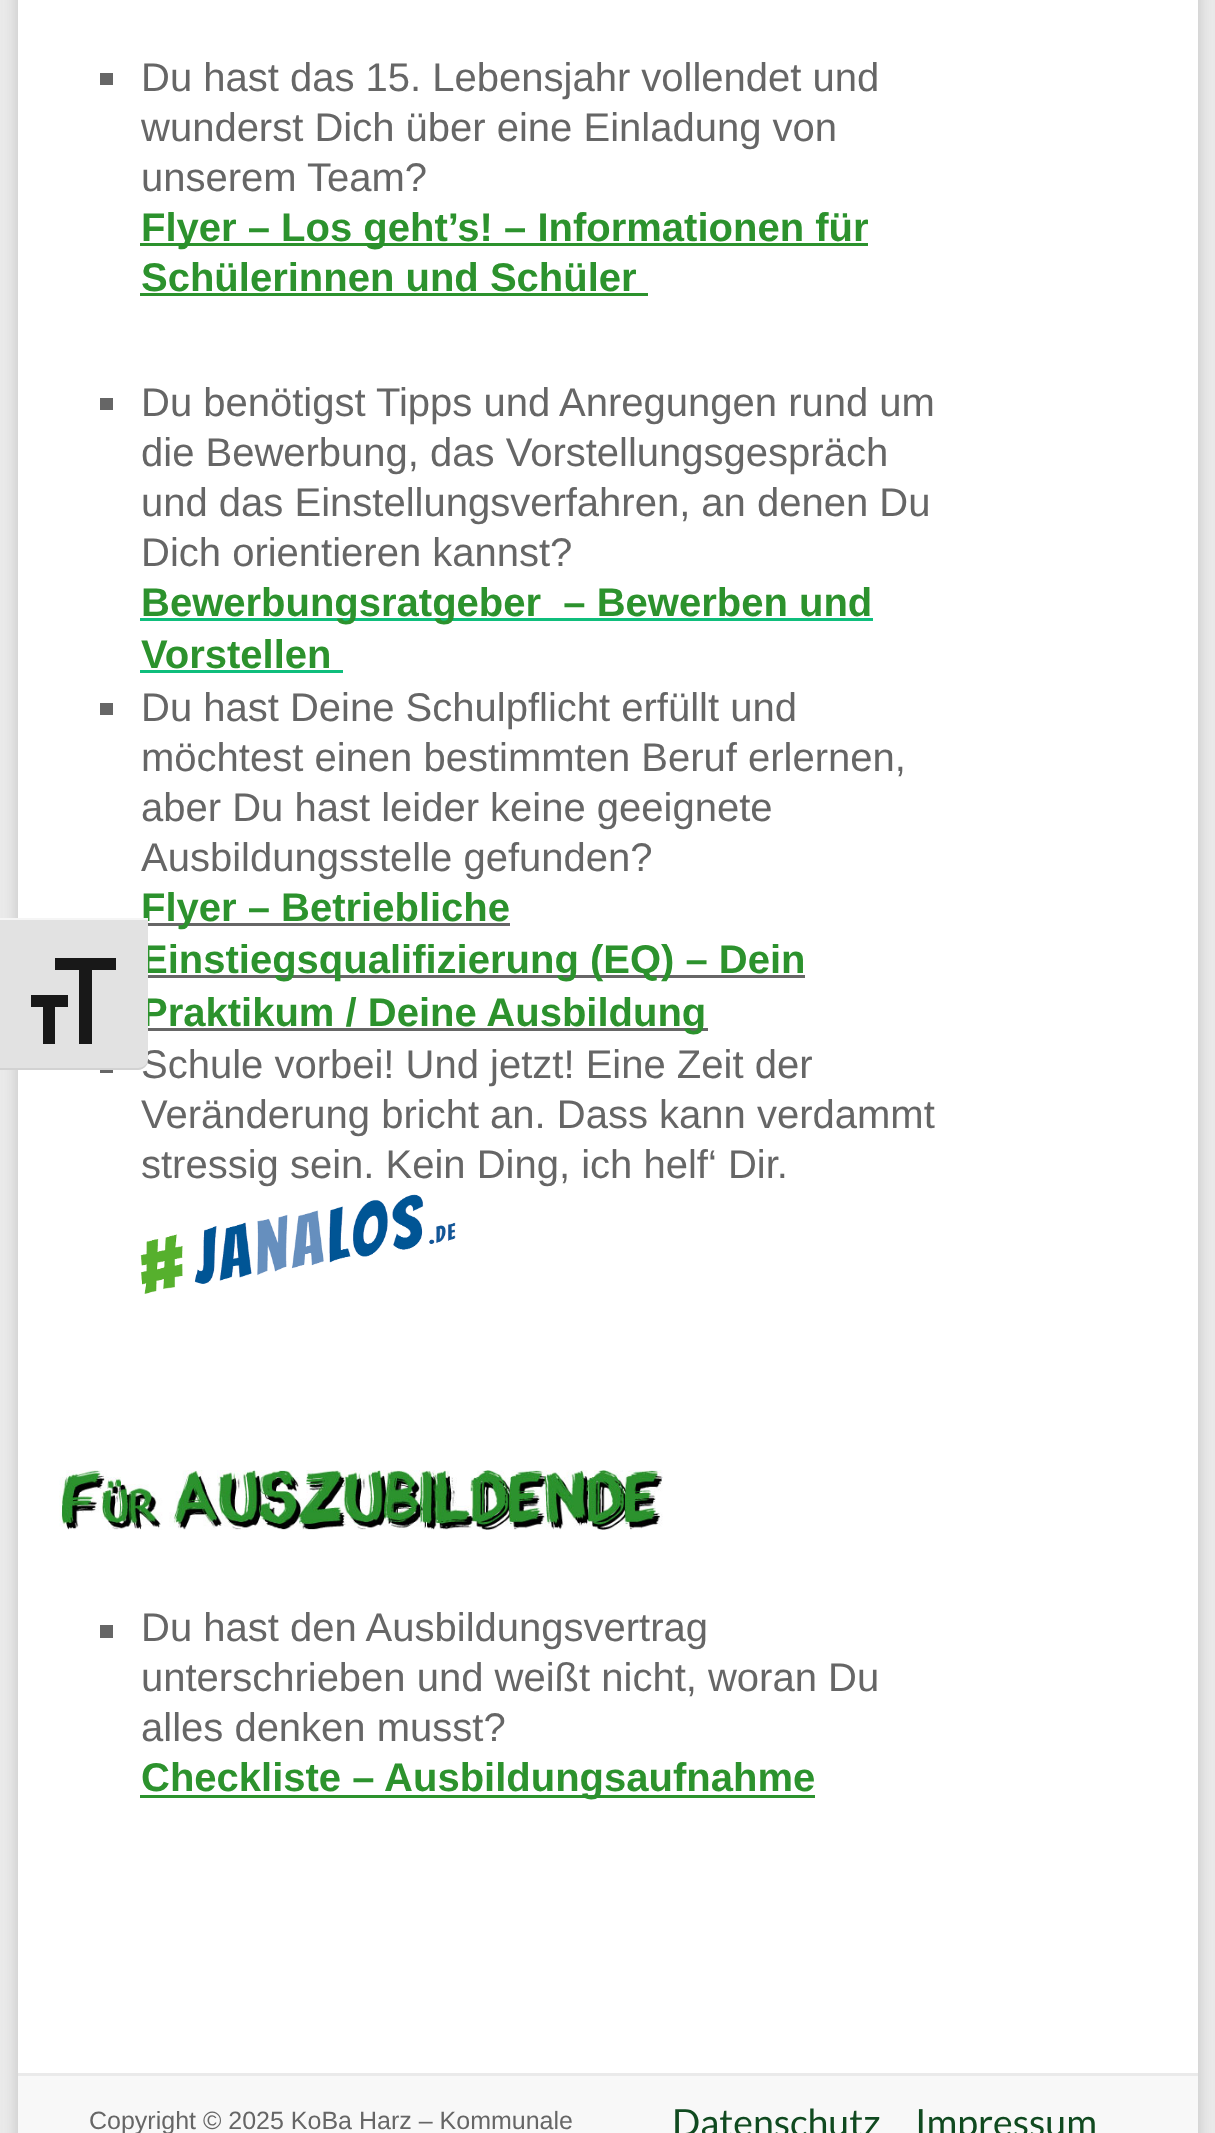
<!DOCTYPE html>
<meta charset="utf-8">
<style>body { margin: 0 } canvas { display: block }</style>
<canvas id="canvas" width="1215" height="2133"></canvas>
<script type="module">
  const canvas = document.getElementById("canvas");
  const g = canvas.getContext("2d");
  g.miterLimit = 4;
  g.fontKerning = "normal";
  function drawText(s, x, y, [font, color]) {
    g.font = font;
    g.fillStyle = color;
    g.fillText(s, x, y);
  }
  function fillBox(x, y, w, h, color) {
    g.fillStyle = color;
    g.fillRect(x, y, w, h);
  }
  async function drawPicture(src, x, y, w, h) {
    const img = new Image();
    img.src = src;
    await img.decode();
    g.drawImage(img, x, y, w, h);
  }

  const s1 = ["bold 40px Liberation Sans", "#2C922D"];
  const s2 = ["40px Liberation Sans", "#666666"];
  const s3 = ["25px Liberation Sans", "#666666"];
  const s4 = ["37.5px Lato", "#104A20"];

  fillBox(0, 0, 1215, 2133, "#EAEAEA");
  g.fillStyle = "rgba(100, 100, 100, 0.3)";
  g.filter = "blur(7.5px)";
  g.beginPath();
  g.rect(18, -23, 1180, 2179);
  g.fill();
  g.filter = "none";
  fillBox(18, 0, 1180, 2073, "#FFFFFF");
  fillBox(140, 923, 370, 3, "#666666");
  drawText("Flyer – Betriebliche", 141, 921, s1);
  fillBox(140, 975, 665, 3, "#666666");
  drawText("Einstiegsqualifizierung (EQ) – Dein", 141, 973, s1);
  fillBox(140, 1028, 568, 3, "#666666");
  drawText("Praktikum / Deine Ausbildung", 141, 1026, s1);
  drawText("Schule vorbei! Und jetzt! Eine Zeit der", 141, 1078, s2);
  g.fillStyle = "#E2E2E2";
  g.beginPath();
  g.roundRect(0, 918, 148, 152, [0, 0, 10, 0]);
  g.fill();
  fillBox(0, 918, 148, 2, "#F5F5F5");
  g.fillStyle = "#D2D2D2";
  g.beginPath();
  g.moveTo(0, 1068);
  g.lineTo(0, 1070);
  g.lineTo(138, 1070);
  g.bezierCurveTo(142, 1070, 146, 1067, 148, 1063);
  g.lineTo(148, 1062);
  g.bezierCurveTo(146, 1065, 142, 1068, 138, 1068);
  g.closePath();
  g.fill();
  g.fillStyle = "#181818";
  g.beginPath();
  g.moveTo(31, 995);
  g.lineTo(68, 995);
  g.lineTo(68, 1007);
  g.lineTo(55, 1007);
  g.lineTo(55, 1044);
  g.lineTo(43, 1044);
  g.lineTo(43, 1007);
  g.lineTo(31, 1007);
  g.closePath();
  g.moveTo(116, 970);
  g.lineTo(92, 970);
  g.lineTo(92, 1044);
  g.lineTo(79, 1044);
  g.lineTo(79, 970);
  g.lineTo(55, 970);
  g.lineTo(55, 958);
  g.lineTo(116, 958);
  g.closePath();
  g.fill();
  fillBox(100, 73, 13, 12, "#666666");
  drawText("Du hast das 15. Lebensjahr vollendet und", 141, 91, s2);
  drawText("wunderst Dich über eine Einladung von", 141, 141, s2);
  drawText("unserem Team?", 141, 191, s2);
  fillBox(140, 243, 728, 3, "#2C922D");
  drawText("Flyer – Los geht’s! – Informationen für", 141, 241, s1);
  drawText("Schülerinnen und Schüler", 141, 291, s1);
  fillBox(140, 293, 508, 3, "#2C922D");
  fillBox(100, 398, 13, 12, "#666666");
  drawText("Du benötigst Tipps und Anregungen rund um", 141, 416, s2);
  drawText("die Bewerbung, das Vorstellungsgespräch", 141, 466, s2);
  drawText("und das Einstellungsverfahren, an denen Du", 141, 516, s2);
  drawText("Dich orientieren kannst?", 141, 566, s2);
  fillBox(140, 618, 733, 3, "#0FBE7C");
  drawText("Bewerbungsratgeber  – Bewerben und", 141, 616, s1);
  drawText("Vorstellen", 141, 668, s1);
  fillBox(140, 670, 203, 3, "#0FBE7C");
  fillBox(100, 703, 13, 12, "#666666");
  drawText("Du hast Deine Schulpflicht erfüllt und", 141, 721, s2);
  drawText("möchtest einen bestimmten Beruf erlernen,", 141, 771, s2);
  drawText("aber Du hast leider keine geeignete", 141, 821, s2);
  drawText("Ausbildungsstelle gefunden?", 141, 871, s2);
  fillBox(100, 1070, 13, 3, "#666666");
  drawText("Veränderung bricht an. Dass kann verdammt", 141, 1128, s2);
  drawText("stressig sein. Kein Ding, ich helf‘ Dir.", 141, 1178, s2);
  await drawPicture("pic1.png", 140, 1194, 316, 100);
  await drawPicture("pic2.png", 59, 1470, 604, 60);
  fillBox(100, 1625, 13, 13, "#666666");
  drawText("Du hast den Ausbildungsvertrag", 141, 1641, s2);
  drawText("unterschrieben und weißt nicht, woran Du", 141, 1691, s2);
  drawText("alles denken musst?", 141, 1741, s2);
  fillBox(140, 1795, 675, 3, "#2C922D");
  drawText("Checkliste – Ausbildungsaufnahme", 141, 1791, s1);
  fillBox(18, 2076, 1180, 57, "#F8F8F8");
  fillBox(18, 2073, 1180, 3, "#EAEAEA");
  drawText("Copyright © 2025 KoBa Harz – Kommunale", 89, 2129, s3);
  drawText("Datenschutz", 672, 2136, s4);
  drawText("Impressum", 915, 2136, s4);
</script>
